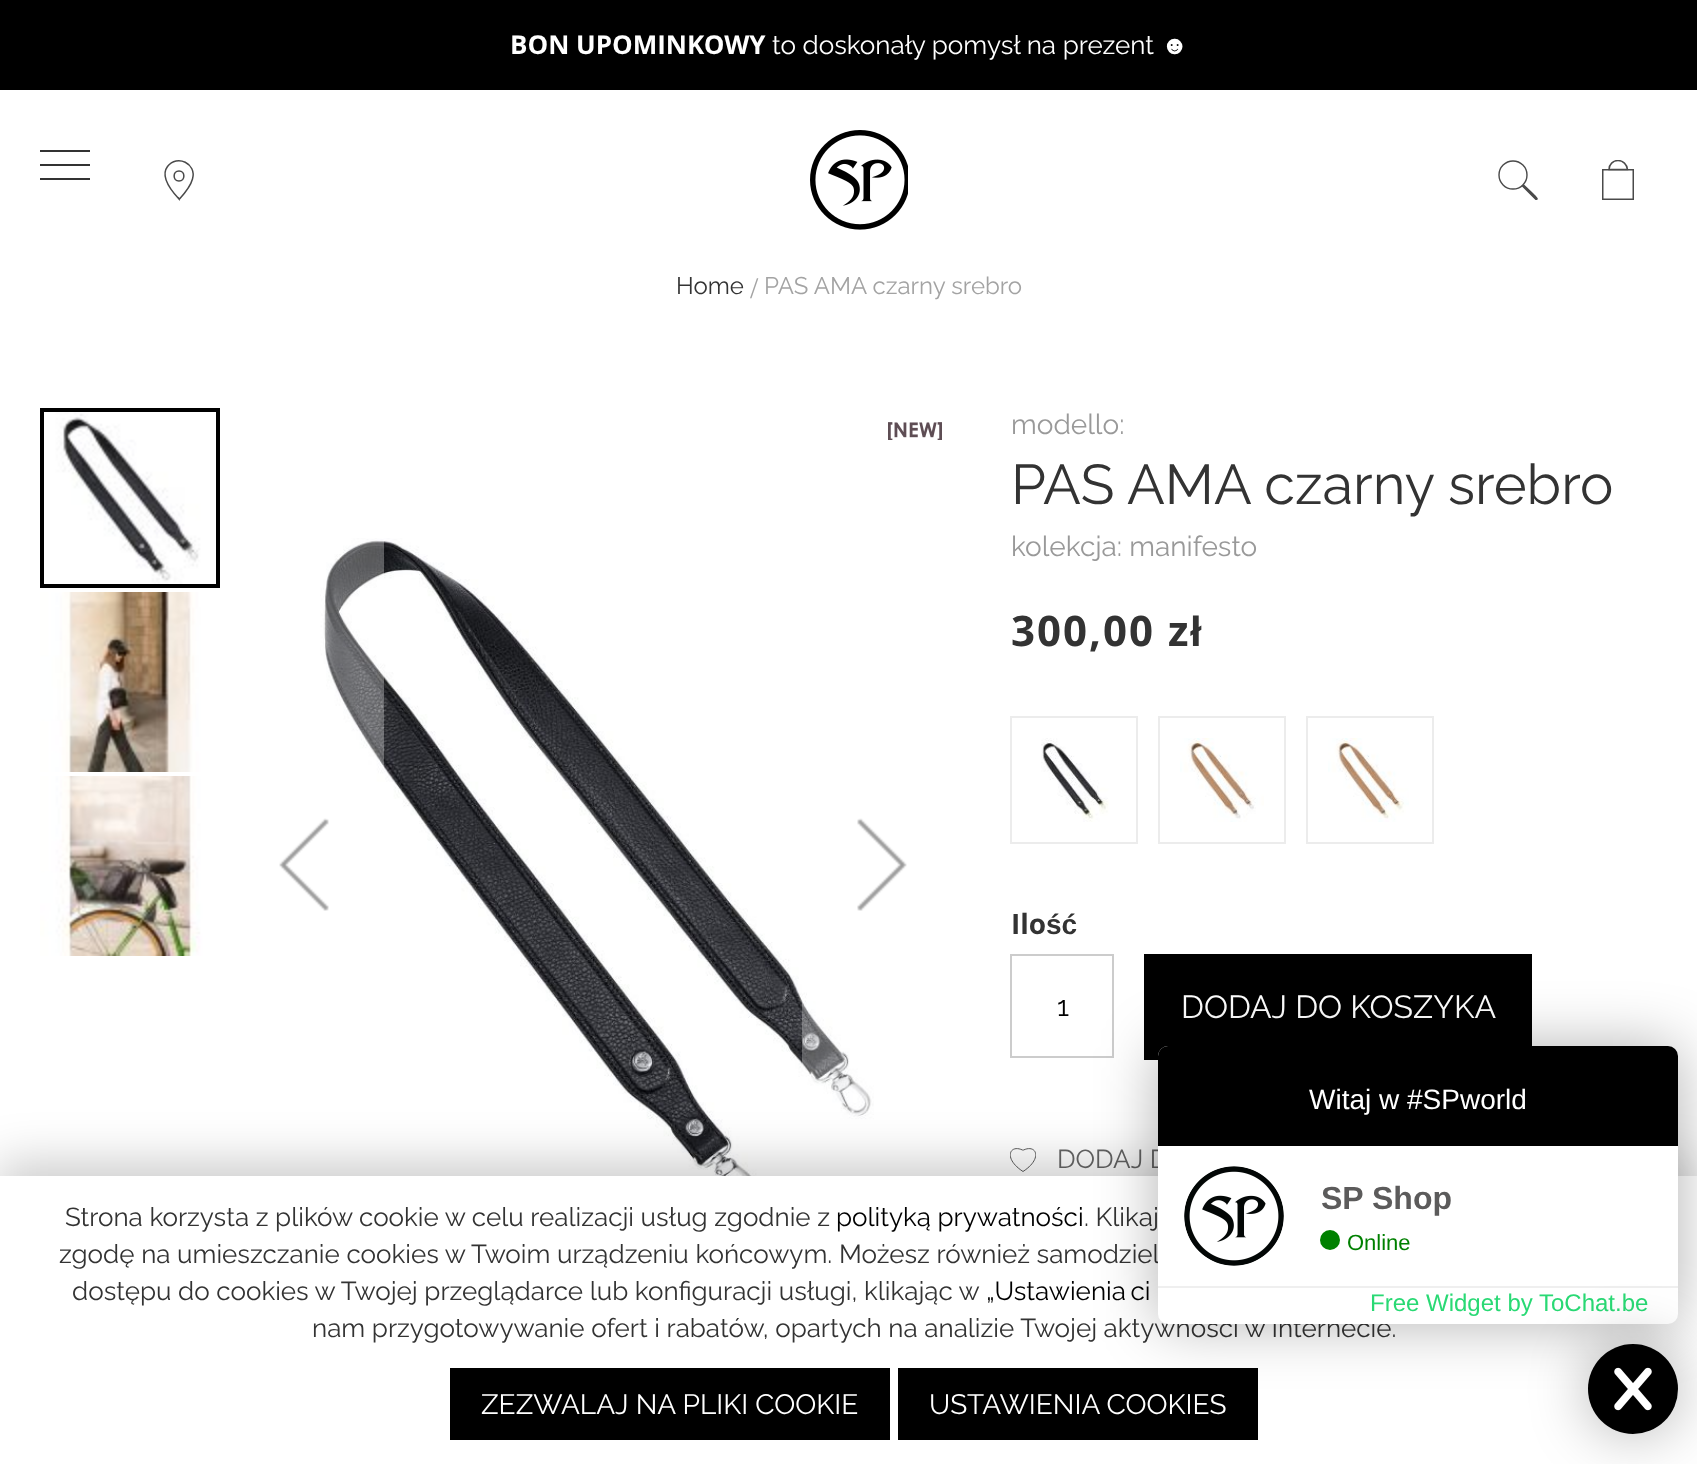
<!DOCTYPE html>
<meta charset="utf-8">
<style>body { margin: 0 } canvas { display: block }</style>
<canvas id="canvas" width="1697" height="1464"></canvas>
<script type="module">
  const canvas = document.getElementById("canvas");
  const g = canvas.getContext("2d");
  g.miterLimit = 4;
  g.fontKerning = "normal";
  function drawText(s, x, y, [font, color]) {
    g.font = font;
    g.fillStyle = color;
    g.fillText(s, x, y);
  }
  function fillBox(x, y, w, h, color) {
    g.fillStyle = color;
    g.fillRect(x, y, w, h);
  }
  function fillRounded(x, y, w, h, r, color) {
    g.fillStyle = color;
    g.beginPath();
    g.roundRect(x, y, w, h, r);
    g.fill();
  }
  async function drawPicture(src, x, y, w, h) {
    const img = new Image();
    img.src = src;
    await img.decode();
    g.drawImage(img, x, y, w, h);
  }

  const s1 = ["bold 26px Open Sans", "#FFFFFF"];
  const s2 = ["100 26px Raleway", "#FFFFFF"];
  const s3 = ["26px Liberation Sans", "#FFFFFF"];
  const s4 = ["100 24px Raleway", "#333333"];
  const s5 = ["30px Liberation Serif", "#A3A3A3"];
  const s6 = ["100 24px Raleway", "#A3A3A3"];
  const s7 = ["100 28px Raleway", "#999999"];
  const s8 = ["100 56px Raleway", "#333333"];
  const s9 = ["bold 42px Open Sans", "#333333"];
  const s10 = ["bold 42px Liberation Sans", "#333333"];
  const s11 = ["bold 28px Open Sans", "#333333"];
  const s12 = ["bold 28px Liberation Sans", "#333333"];
  const s13 = ["100 28px Raleway", "#000000"];
  const s14 = ["100 32px Raleway", "#FFFFFF"];
  const s15 = ["100 26px Raleway", "#666666"];
  const s16 = ["100 26px Raleway", "#333333"];
  const s17 = ["100 26px Raleway", "#000000"];
  const s18 = ["100 28px Raleway", "#FFFFFF"];
  const s19 = ["28px Liberation Sans", "#FFFFFF"];
  const s20 = ["bold 32px Liberation Sans", "#5C5B5B"];
  const s21 = ["22px Liberation Sans", "#008000"];
  const s22 = ["24px Liberation Sans", "#29D974"];

  fillBox(0, 0, 1697, 1464, "#FFFFFF");
  fillBox(0, 0, 1697, 90, "#000000");
  drawText("BON UPOMINKOWY", 510, 54, s1);
  drawText("to doskonały pomysł na prezent", 772, 54, s2);
  drawText("☻", 1161, 54, s3);
  fillBox(40, 150, 50, 2, "#333333");
  fillBox(40, 164, 50, 2, "#333333");
  fillBox(40, 178, 50, 2, "#333333");
  g.beginPath();
  g.moveTo(179.5, 199);
  g.lineTo(179, 198.5);
  g.lineTo(179, 199);
  g.bezierCurveTo(172, 191.5, 159.5, 177, 167.5, 166.5);
  g.bezierCurveTo(177, 154, 197, 163.5, 192.5, 179);
  g.bezierCurveTo(190.5, 186.5, 184.5, 193.5, 179.5, 199);
  g.closePath();
  g.moveTo(179, 171);
  g.bezierCurveTo(185.5, 171, 185.5, 181, 179, 181);
  g.bezierCurveTo(172.5, 181, 172.5, 171, 179, 171);
  g.closePath();
  g.strokeStyle = "#4A4A4A";
  g.lineWidth = 1.5;
  g.stroke();
  await drawPicture("pic1.png", 810, 130, 98, 100);
  g.beginPath();
  g.arc(1513, 175, 14, 0, Math.PI * 2);
  g.lineWidth = 1.4;
  g.stroke();
  g.fillStyle = "#4A4A4A";
  g.beginPath();
  g.moveTo(1523.5, 184);
  g.lineTo(1533, 193);
  g.bezierCurveTo(1536, 196, 1540, 199.5, 1536.5, 200);
  g.lineTo(1535.5, 200);
  g.lineTo(1521.5, 186);
  g.closePath();
  g.fill("evenodd");
  g.lineWidth = 1.5;
  g.strokeRect(1602.75, 169.75, 30.5, 29.5);
  g.save();
  g.beginPath();
  g.rect(1602, 160, 32, 40);
  g.clip();
  g.beginPath();
  g.moveTo(1618, 160.5);
  g.bezierCurveTo(1623, 160.5, 1627, 164.5, 1627.5, 169.5);
  g.lineTo(1609, 169.5);
  g.bezierCurveTo(1609, 164.5, 1613, 160.5, 1618, 160.5);
  g.closePath();
  g.stroke();
  g.restore();
  drawText("Home", 676, 294, s4);
  drawText("/", 750, 298, s5);
  drawText("PAS AMA czarny srebro", 764, 294, s6);
  await drawPicture("pic2.png", 44, 412, 172, 172);
  g.strokeStyle = "#000000";
  g.lineWidth = 4;
  g.strokeRect(42, 410, 176, 176);
  await drawPicture("pic3.png", 40, 592, 180, 180);
  await drawPicture("pic4.png", 40, 776, 180, 180);
  await drawPicture("pic5.png", 320, 538, 554, 638);
  fillBox(324, 540, 60, 232, "rgba(255, 255, 255, 0.3)");
  await drawPicture("pic6.png", 279, 818, 50, 93);
  fillBox(802, 996, 69, 122, "rgba(255, 255, 255, 0.3)");
  await drawPicture("pic7.png", 857, 818, 50, 93);
  await drawPicture("pic8.png", 888, 422, 54, 18);
  drawText("modello:", 1011, 434, s7);
  drawText("PAS AMA czarny srebro", 1011, 504, s8);
  drawText("kolekcja: manifesto", 1011, 556, s7);
  g.letterSpacing = "2px";
  drawText("300,00 z", 1011, 646, s9);
  drawText("ł", 1190, 646, s10);
  g.strokeStyle = "#ECECEC";
  g.lineWidth = 2;
  g.strokeRect(1011, 717, 126, 126);
  await drawPicture("pic9.png", 1041, 738, 68, 84);
  g.strokeRect(1159, 717, 126, 126);
  await drawPicture("pic10.png", 1180, 738, 84, 84);
  g.strokeRect(1307, 717, 126, 126);
  await drawPicture("pic11.png", 1328, 738, 81, 84);
  g.letterSpacing = "0px";
  drawText("Ilo", 1011, 934, s11);
  drawText("ść", 1046, 934, s12);
  g.strokeStyle = "#CCCCCC";
  g.strokeRect(1011, 955, 102, 102);
  drawText("1", 1057, 1016, s13);
  fillBox(1144, 954, 388, 106, "#000000");
  drawText("DODAJ DO KOSZYKA", 1181, 1018, s14);
  g.save();
  g.beginPath();
  g.rect(1010, 1148, 26, 24);
  g.clip();
  g.beginPath();
  g.moveTo(1023.5, 1150);
  g.lineTo(1022.5, 1150);
  g.bezierCurveTo(1009.5, 1144, 1003, 1158.5, 1023, 1171.5);
  g.bezierCurveTo(1043, 1158.5, 1036.5, 1144, 1023.5, 1150);
  g.closePath();
  g.strokeStyle = "#4A4A4A";
  g.lineWidth = 0.9;
  g.stroke();
  g.restore();
  drawText("DODAJ D", 1057, 1168, s15);
  g.fillStyle = "rgba(0, 0, 0, 0.2)";
  g.filter = "blur(24px)";
  g.beginPath();
  g.rect(-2, 1162, 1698, 288);
  g.fill();
  g.filter = "none";
  fillBox(0, 1176, 1697, 288, "#FFFFFF");
  drawText("Strona korzysta z plików cookie w celu realizacji usług zgodnie z", 65, 1226, s16);
  drawText("polityką prywatności", 836, 1226, s17);
  drawText(". Klikaj", 1084, 1226, s16);
  drawText("zgodę na umieszczanie cookies w Twoim urządzeniu końcowym. Możesz również samodziel", 59, 1263, s16);
  drawText("dostępu do cookies w Twojej przeglądarce lub konfiguracji usługi, klikając w", 72, 1300, s16);
  g.wordSpacing = "-2px";
  drawText("„Ustawienia ci", 986, 1300, s17);
  g.wordSpacing = "0px";
  drawText("nam przygotowywanie ofert i rabatów, opartych na analizie Twojej aktywności w Internecie.", 312, 1337, s16);
  fillBox(450, 1368, 440, 72, "#000000");
  drawText("ZEZWALAJ NA PLIKI COOKIE", 481, 1414, s18);
  fillBox(898, 1368, 360, 72, "#000000");
  drawText("USTAWIENIA COOKIES", 929, 1414, s18);
  g.fillStyle = "rgba(0, 0, 0, 0.3)";
  g.filter = "blur(30px)";
  g.beginPath();
  g.roundRect(1158, 1046, 520, 278, 10);
  g.fill();
  g.filter = "none";
  fillRounded(1158, 1046, 520, 278, 10, "#FFFFFF");
  g.fillStyle = "#000000";
  g.beginPath();
  g.roundRect(1158, 1046, 520, 100, [10, 10, 0, 0]);
  g.fill();
  drawText("Witaj w #SPworld", 1309, 1109, s19);
  await drawPicture("pic12.png", 1184, 1166, 100, 100);
  drawText("SP Shop", 1321, 1209, s20);
  g.fillStyle = "#008000";
  g.beginPath();
  g.arc(1330, 1240, 10, 0, Math.PI * 2);
  g.fill();
  drawText("Online", 1347, 1250, s21);
  fillBox(1158, 1286, 520, 2, "#EFEFEF");
  drawText("Free Widget by ToChat.be", 1370, 1311, s22);
  g.fillStyle = "rgba(0, 0, 0, 0.3)";
  g.filter = "blur(30px)";
  g.beginPath();
  g.roundRect(1588, 1344, 90, 90, 45);
  g.fill();
  g.filter = "none";
  g.fillStyle = "#000000";
  g.beginPath();
  g.arc(1633, 1389, 45, 0, Math.PI * 2);
  g.fill();
  await drawPicture("pic13.png", 1614, 1367, 38, 44);
</script>
